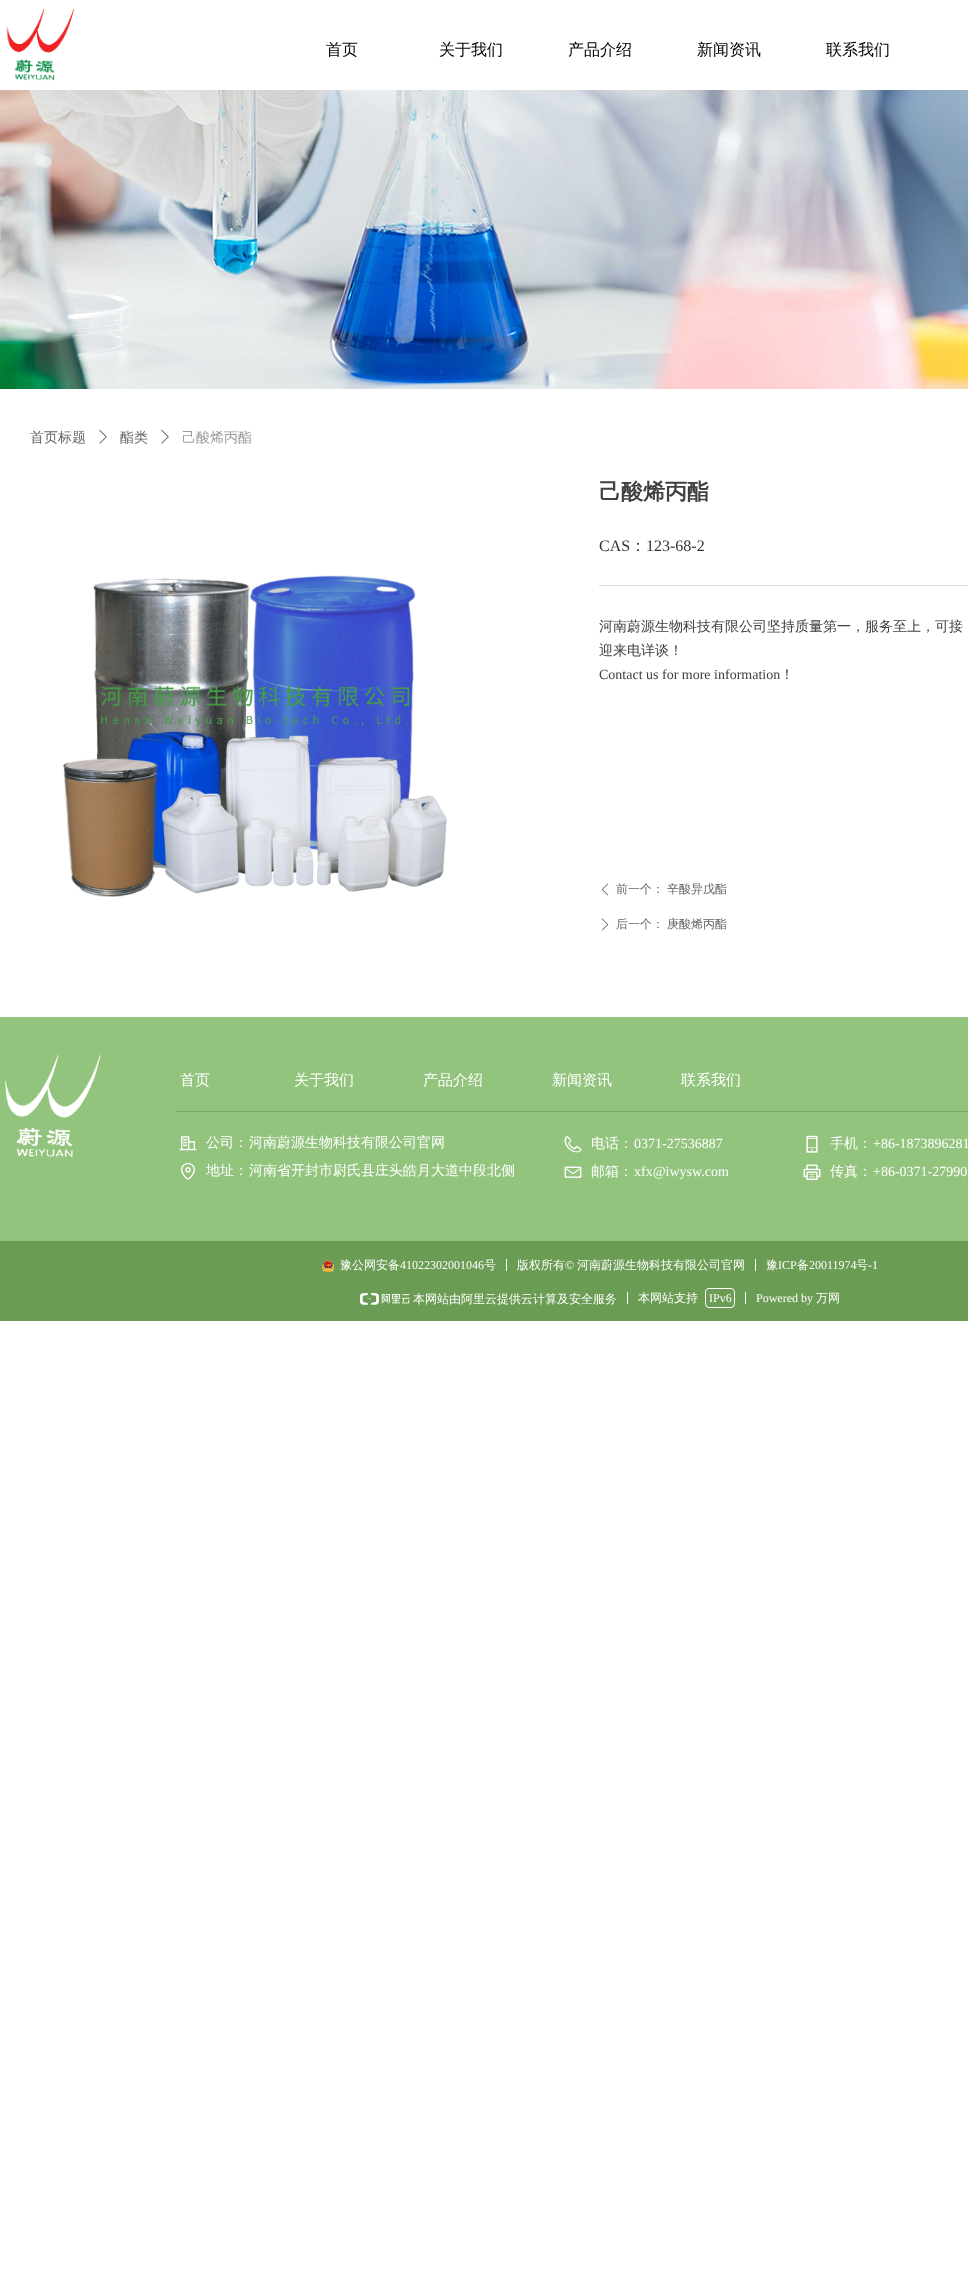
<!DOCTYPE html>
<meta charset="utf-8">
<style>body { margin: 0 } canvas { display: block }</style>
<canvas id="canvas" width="968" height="2285"></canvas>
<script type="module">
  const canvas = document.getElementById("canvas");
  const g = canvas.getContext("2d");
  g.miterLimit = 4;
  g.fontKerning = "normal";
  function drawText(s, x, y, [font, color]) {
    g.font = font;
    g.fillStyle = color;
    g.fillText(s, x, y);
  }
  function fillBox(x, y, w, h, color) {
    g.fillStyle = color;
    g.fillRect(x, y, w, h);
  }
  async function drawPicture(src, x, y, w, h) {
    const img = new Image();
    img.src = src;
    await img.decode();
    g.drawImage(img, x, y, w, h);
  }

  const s1 = ["500 16px WenQuanYi Zen Hei", "#000000"];
  const s2 = ["500 14px WenQuanYi Zen Hei", "#666666"];
  const s3 = ["500 14px WenQuanYi Zen Hei", "#999999"];
  const s4 = ["bold 22px WenQuanYi Zen Hei", "#404040"];
  const s5 = ["16px Liberation Serif", "#333333"];
  const s6 = ["500 16px WenQuanYi Zen Hei", "#333333"];
  const s7 = ["500 14px WenQuanYi Zen Hei", "#404040"];
  const s8 = ["14px Liberation Serif", "#404040"];
  const s9 = ["500 12px WenQuanYi Zen Hei", "#666666"];
  const s10 = ["500 15px WenQuanYi Zen Hei", "#FFFFFF"];
  const s11 = ["500 14px WenQuanYi Zen Hei", "#FFFFFF"];
  const s12 = ["14px Liberation Serif", "#FFFFFF"];
  const s13 = ["500 12px WenQuanYi Zen Hei", "#FFFFFF"];
  const s14 = ["12px Liberation Serif", "#FFFFFF"];

  fillBox(0, 0, 968, 2285, "#FFFFFF");
  await drawPicture("pic1.png", 6, 8, 69, 73);
  drawText("首页", 326, 55, s1);
  drawText("关于我们", 439, 55, s1);
  drawText("产品介绍", 568, 55, s1);
  drawText("新闻资讯", 697, 55, s1);
  drawText("联系我们", 826, 55, s1);
  await drawPicture("pic2.png", 0, 90, 968, 299);
  drawText("首页标题", 30, 442, s2);
  await drawPicture("pic3.png", 99, 429, 8, 15);
  drawText("酯类", 120, 442, s2);
  await drawPicture("pic3.png", 161, 429, 8, 15);
  drawText("己酸烯丙酯", 182, 442, s3);
  drawText("己酸烯丙酯", 599, 499, s4);
  drawText("CAS", 599, 551, s5);
  drawText("：", 630, 551, s6);
  drawText("123-68-2", 646, 551, s5);
  await drawPicture("pic4.png", 62, 575, 385, 322);
  fillBox(599, 585, 369, 1, "#DDDDDD");
  drawText("河南蔚源生物科技有限公司坚持质量第一，服务至上，可接", 599, 631, s7);
  drawText("迎来电详谈！", 599, 655, s7);
  drawText("Contact us for more information", 599, 679, s8);
  drawText("！", 780, 679, s7);
  await drawPicture("pic5.png", 601, 883, 8, 13);
  drawText("前一个：", 616, 893, s9);
  drawText("辛酸异戊酯", 667, 893, s9);
  await drawPicture("pic6.png", 601, 918, 8, 13);
  drawText("后一个：", 616, 928, s9);
  drawText("庚酸烯丙酯", 667, 928, s9);
  fillBox(0, 1017, 968, 224, "#93C47D");
  await drawPicture("pic7.png", 5, 1054, 96, 103);
  drawText("首页", 180, 1085, s10);
  drawText("关于我们", 294, 1085, s10);
  drawText("产品介绍", 423, 1085, s10);
  drawText("新闻资讯", 552, 1085, s10);
  drawText("联系我们", 681, 1085, s10);
  fillBox(176, 1111, 792, 1, "#77A761");
  await drawPicture("pic8.png", 179, 1136, 18, 15);
  drawText("公司：", 206, 1147, s11);
  drawText("河南蔚源生物科技有限公司官网", 249, 1147, s11);
  await drawPicture("pic9.png", 181, 1162, 14, 18);
  drawText("地址：", 206, 1175, s11);
  drawText("河南省开封市尉氏县庄头皓月大道中段北侧", 249, 1175, s11);
  await drawPicture("pic10.png", 564, 1136, 18, 17);
  drawText("电话：", 591, 1148, s11);
  drawText("0371-27536887", 634, 1148, s12);
  await drawPicture("pic11.png", 564, 1166, 18, 12);
  drawText("邮箱：", 591, 1176, s11);
  drawText("xfx@iwysw.com", 634, 1176, s12);
  await drawPicture("pic12.png", 806, 1135, 12, 18);
  drawText("手机：", 830, 1148, s11);
  drawText("+86-1873896281", 873, 1148, s12);
  await drawPicture("pic13.png", 803, 1164, 18, 16);
  drawText("传真：", 830, 1176, s11);
  drawText("+86-0371-27990", 873, 1176, s12);
  fillBox(0, 1241, 968, 80, "#6B9C53");
  await drawPicture("pic14.png", 322, 1260, 12, 12);
  drawText("豫公网安备", 340, 1269, s13);
  drawText("41022302001046", 400, 1269, s14);
  drawText("号", 484, 1269, s13);
  fillBox(506, 1259, 1, 12, "#FFFFFF");
  drawText("版权所有", 517, 1269, s13);
  drawText("©", 565, 1269, s14);
  drawText("河南蔚源生物科技有限公司官网", 577, 1269, s13);
  fillBox(755, 1259, 1, 12, "#FFFFFF");
  drawText("豫", 766, 1269, s13);
  drawText("ICP", 778, 1269, s14);
  drawText("备", 797, 1269, s13);
  drawText("20011974", 809, 1269, s14);
  drawText("号", 856, 1269, s13);
  drawText("-1", 868, 1269, s14);
  await drawPicture("pic15.png", 360, 1293, 50, 12);
  drawText("本网站由阿里云提供云计算及安全服务", 413, 1303, s13);
  fillBox(627, 1292, 1, 12, "#FFFFFF");
  drawText("本网站支持", 638, 1302, s13);
  g.beginPath();
  g.roundRect(705.5, 1288.5, 29, 19, 3.5);
  g.strokeStyle = "#FFFFFF";
  g.stroke();
  drawText("IPv6", 709, 1302, s14);
  fillBox(745, 1292, 1, 12, "#FFFFFF");
  drawText("Powered by", 756, 1302, s14);
  drawText("万网", 816, 1302, s13);
</script>
